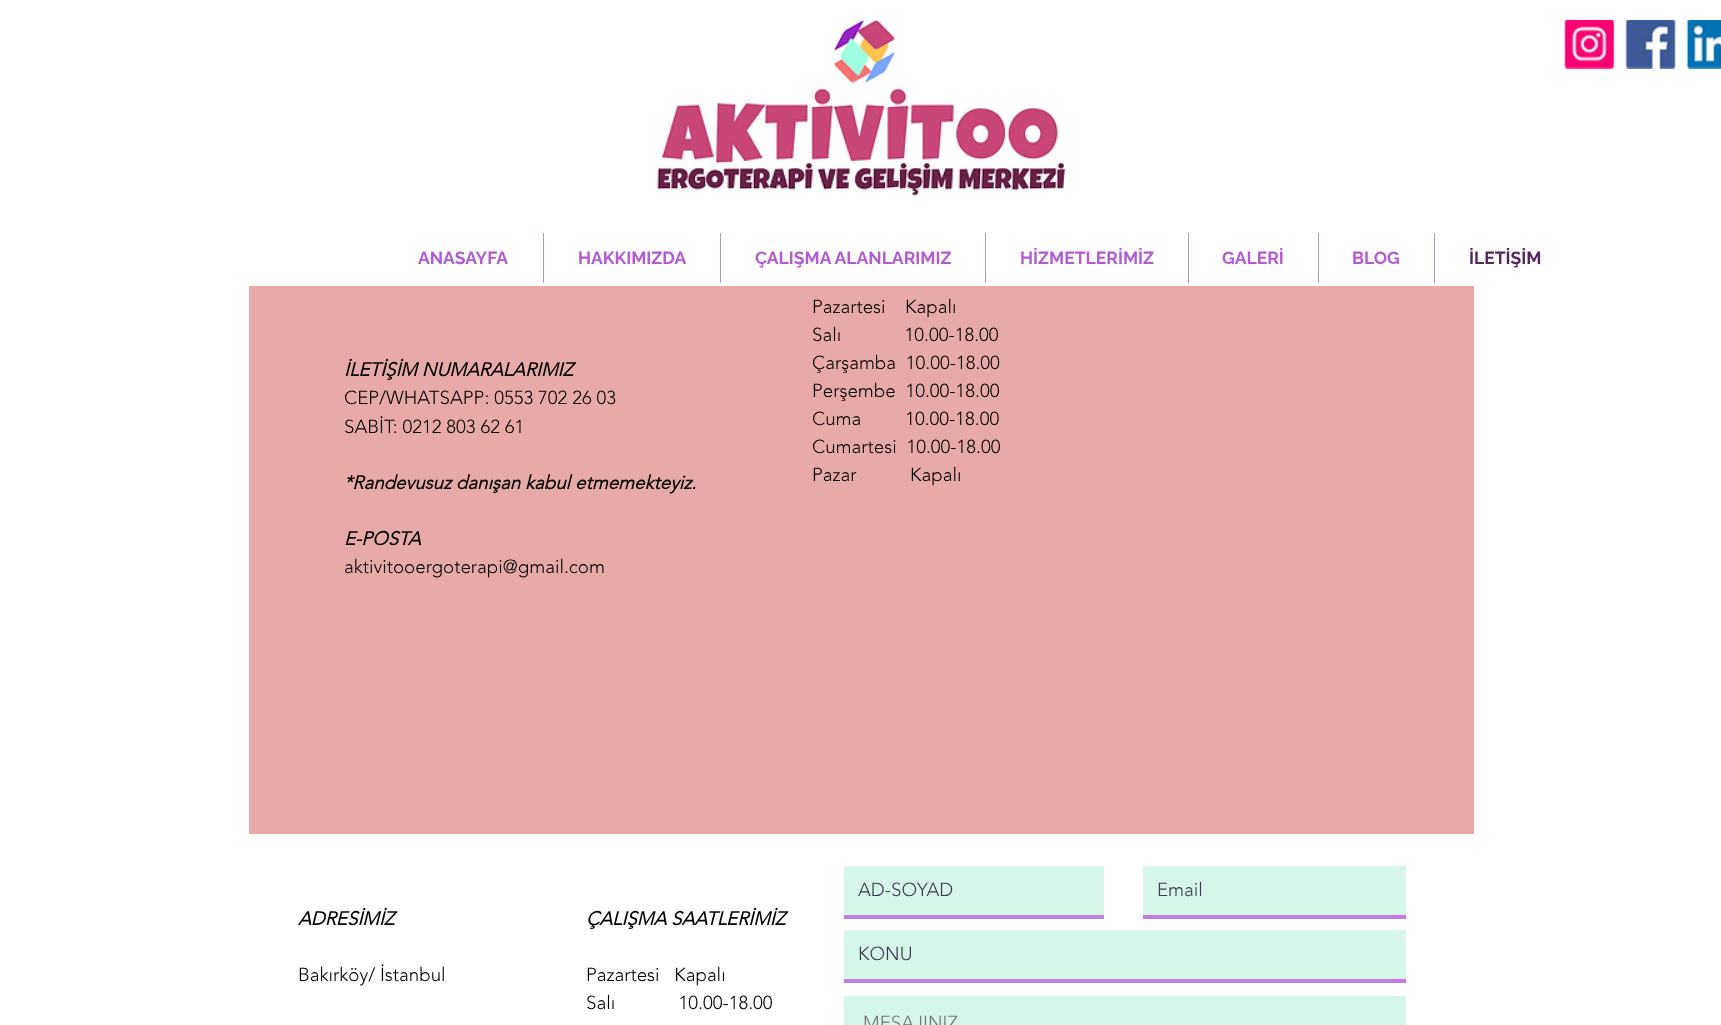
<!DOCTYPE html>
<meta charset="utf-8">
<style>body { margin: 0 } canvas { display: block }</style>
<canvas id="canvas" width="1721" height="1025"></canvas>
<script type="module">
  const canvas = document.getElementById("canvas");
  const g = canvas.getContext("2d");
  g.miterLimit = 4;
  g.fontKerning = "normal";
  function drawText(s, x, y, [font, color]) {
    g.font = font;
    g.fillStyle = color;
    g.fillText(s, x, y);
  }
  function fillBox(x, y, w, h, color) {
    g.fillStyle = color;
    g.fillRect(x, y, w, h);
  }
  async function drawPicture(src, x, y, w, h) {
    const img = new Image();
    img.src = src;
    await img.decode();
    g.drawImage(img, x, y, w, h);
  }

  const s1 = ["bold 17.5px Raleway", "#B45AD3"];
  const s2 = ["bold 17.5px Raleway", "#532563"];
  const s3 = ["italic bold 18.75px 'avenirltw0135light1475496'", "#000000"];
  const s4 = ["300 18.75px 'avenirltw0135light1475496'", "#000000"];
  const s5 = ["300 18.75px 'avenirltw0135light1475496'", "#373B4D"];
  const s6 = ["300 18.75px 'avenirltw0135light1475496'", "#757575"];

  fillBox(0, 0, 1721, 1025, "#FFFFFF");
  await drawPicture("pic1.png", 657, 20, 409, 176);
  await drawPicture("pic2.png", 1564, 20, 50, 49);
  await drawPicture("pic3.png", 1625, 20, 51, 49);
  await drawPicture("pic4.png", 1686, 20, 35, 49);
  drawText("ANASAYFA", 418, 264, s1);
  fillBox(543, 233, 1, 50, "#AF98C4");
  drawText("HAKKIMIZDA", 578, 264, s1);
  fillBox(720, 233, 1, 50, "#AF98C4");
  drawText("ÇALIŞMA ALANLARIMIZ", 755, 264, s1);
  fillBox(985, 233, 1, 50, "#AF98C4");
  drawText("HİZMETLERİMİZ", 1020, 264, s1);
  fillBox(1188, 233, 1, 50, "#AF98C4");
  drawText("GALERİ", 1222, 264, s1);
  fillBox(1318, 233, 1, 50, "#AF98C4");
  drawText("BLOG", 1352, 264, s1);
  fillBox(1434, 233, 1, 50, "#AF98C4");
  drawText("İLETİŞİM", 1469, 264, s2);
  fillBox(249, 286, 1225, 548, "#E8AAA9");
  drawText("İLETİŞİM NUMARALARIMIZ", 344, 376, s3);
  drawText("CEP/WHATSAPP: 0553 702 26 03", 344, 404, s4);
  drawText("SABİT: 0212 803 62 61", 344, 433, s4);
  drawText("*Randevusuz danışan kabul etmemekteyiz.", 344, 489, s3);
  drawText("E-POSTA", 344, 545, s3);
  drawText("aktivitooergoterapi@gmail.com", 344, 573, s4);
  drawText("Pazartesi    Kapalı", 812, 313, s4);
  drawText("Salı             10.00-18.00", 812, 341, s4);
  drawText("Çarşamba  10.00-18.00", 812, 369, s4);
  drawText("Perşembe  10.00-18.00", 812, 397, s4);
  drawText("Cuma         10.00-18.00", 812, 425, s4);
  drawText("Cumartesi  10.00-18.00", 812, 453, s4);
  drawText("Pazar           Kapalı", 812, 481, s4);
  drawText("ADRESİMİZ", 298, 925, s3);
  drawText("Bakırköy/ İstanbul", 298, 981, s4);
  drawText("ÇALIŞMA SAATLERİMİZ", 586, 925, s3);
  drawText("Pazartesi   Kapalı", 586, 981, s4);
  drawText("Salı             10.00-18.00", 586, 1009, s4);
  fillBox(844, 866, 260, 49, "#D7F6EA");
  fillBox(844, 915, 260, 4, "#C37BDD");
  drawText("AD-SOYAD", 858, 896, s5);
  fillBox(1143, 866, 263, 49, "#D7F6EA");
  fillBox(1143, 915, 263, 4, "#C37BDD");
  drawText("Email", 1157, 896, s5);
  fillBox(844, 930, 562, 49, "#D7F6EA");
  fillBox(844, 979, 562, 4, "#C37BDD");
  drawText("KONU", 858, 960, s5);
  fillBox(844, 996, 562, 29, "#D7F6EA");
  drawText("MESAJINIZ", 863, 1029, s6);
</script>
